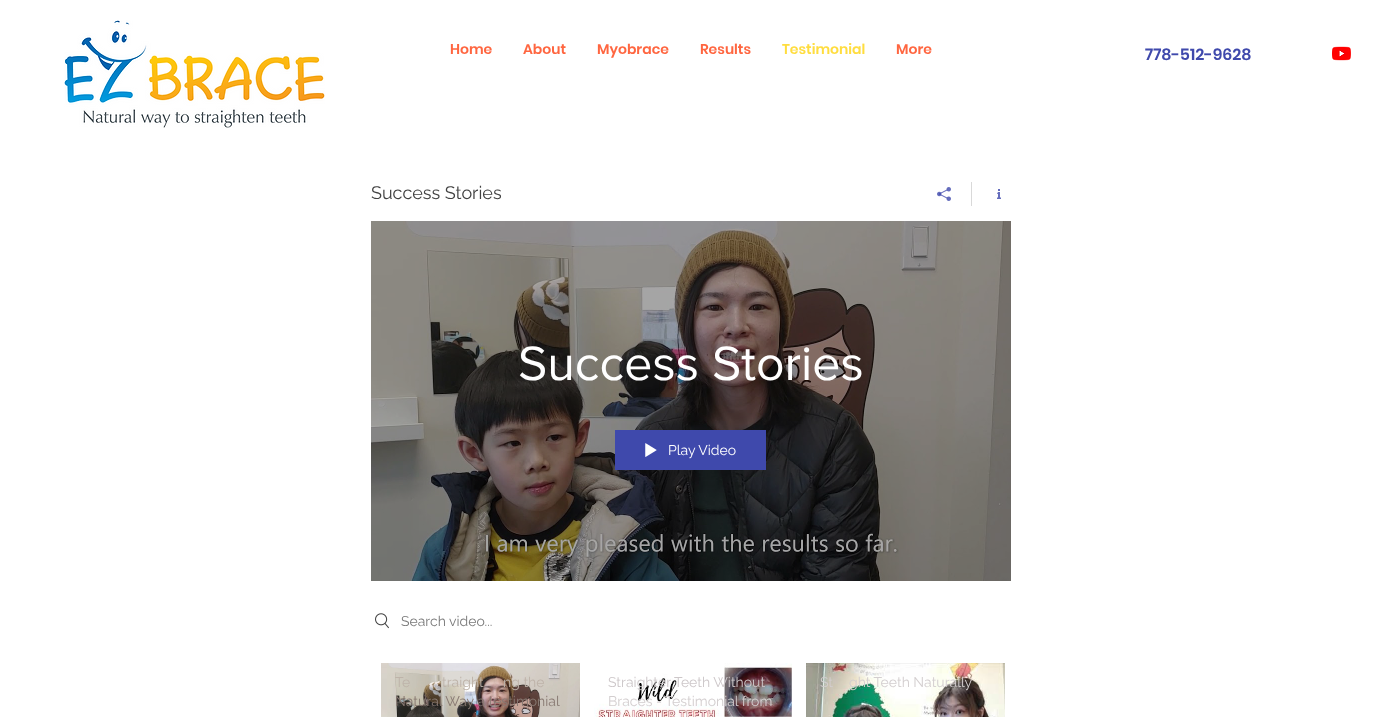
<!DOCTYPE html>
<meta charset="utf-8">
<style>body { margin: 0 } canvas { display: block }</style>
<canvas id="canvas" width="1382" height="717"></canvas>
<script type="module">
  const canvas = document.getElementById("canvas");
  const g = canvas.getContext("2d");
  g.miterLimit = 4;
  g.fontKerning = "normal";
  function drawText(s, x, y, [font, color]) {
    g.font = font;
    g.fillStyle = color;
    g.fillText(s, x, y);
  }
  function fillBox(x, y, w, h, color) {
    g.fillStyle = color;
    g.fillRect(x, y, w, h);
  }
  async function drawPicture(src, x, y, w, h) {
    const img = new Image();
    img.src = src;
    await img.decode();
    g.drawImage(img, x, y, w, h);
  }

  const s1 = ["600 14px Poppins", "#FF6640"];
  const s2 = ["600 14px Poppins", "#FFDD3F"];
  const s3 = ["600 16px Poppins", "#3F49AC"];
  const s4 = ["18px Raleway", "#414141"];
  const s5 = ["50px 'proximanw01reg'", "#FFFFFF"];
  const s6 = ["14px Raleway", "#FFFFFF"];
  const s7 = ["14px Raleway", "#7A7A7A"];
  const s8 = ["14px Raleway", "#BEB3A9"];
  const s9 = ["14px Raleway", "#887972"];
  const s10 = ["14px Raleway", "#CDC7C9"];
  const s11 = ["14px Raleway", "#D3CECF"];

  fillBox(0, 0, 1382, 717, "#FFFFFF");
  await drawPicture("pic1.png", 64, 20, 261, 108);
  drawText("Home", 450, 54, s1);
  drawText("About", 523, 54, s1);
  drawText("Myobrace", 597, 54, s1);
  drawText("Results", 700, 54, s1);
  drawText("Testimonial", 782, 54, s2);
  drawText("More", 896, 54, s1);
  drawText("778-512-9628", 1145, 60, s3);
  await drawPicture("pic2.png", 1332, 46, 19, 15);
  drawText("Success Stories", 371, 199, s4);
  fillBox(971, 182, 1, 24, "#D9D9D9");
  await drawPicture("pic3.png", 937, 187, 14, 14);
  await drawPicture("pic4.png", 997, 189, 4, 10);
  await drawPicture("pic5.png", 371, 221, 640, 360);
  drawText("Success Stories", 518, 380, s5);
  fillBox(615, 430, 151, 40, "#3F49AC");
  await drawPicture("pic6.png", 645, 443, 12, 14);
  drawText("Play Video", 668, 455, s6);
  await drawPicture("pic7.png", 375, 613, 14, 16);
  drawText("Search video...", 401, 626, s7);
  await drawPicture("pic8.png", 381, 663, 6, 54);
  await drawPicture("pic9.png", 387, 663, 193, 54);
  drawText("Te", 395, 687, s8);
  drawText("traight", 442, 687, s8);
  drawText("ng the", 503, 687, s8);
  drawText("Natural Way a testimonial", 395, 706, s9);
  await drawPicture("pic10.png", 594, 663, 198, 54);
  await drawPicture("pic11.png", 598, 667, 194, 50);
  drawText("Straighter Teeth Without", 608, 687, s10);
  drawText("Braces - Testimonial from", 608, 706, s11);
  await drawPicture("pic12.png", 806, 663, 9, 54);
  await drawPicture("pic13.png", 815, 663, 190, 54);
  drawText("St", 820, 687, s11);
  drawText("ght Teeth Naturally", 849, 687, s11);
</script>
